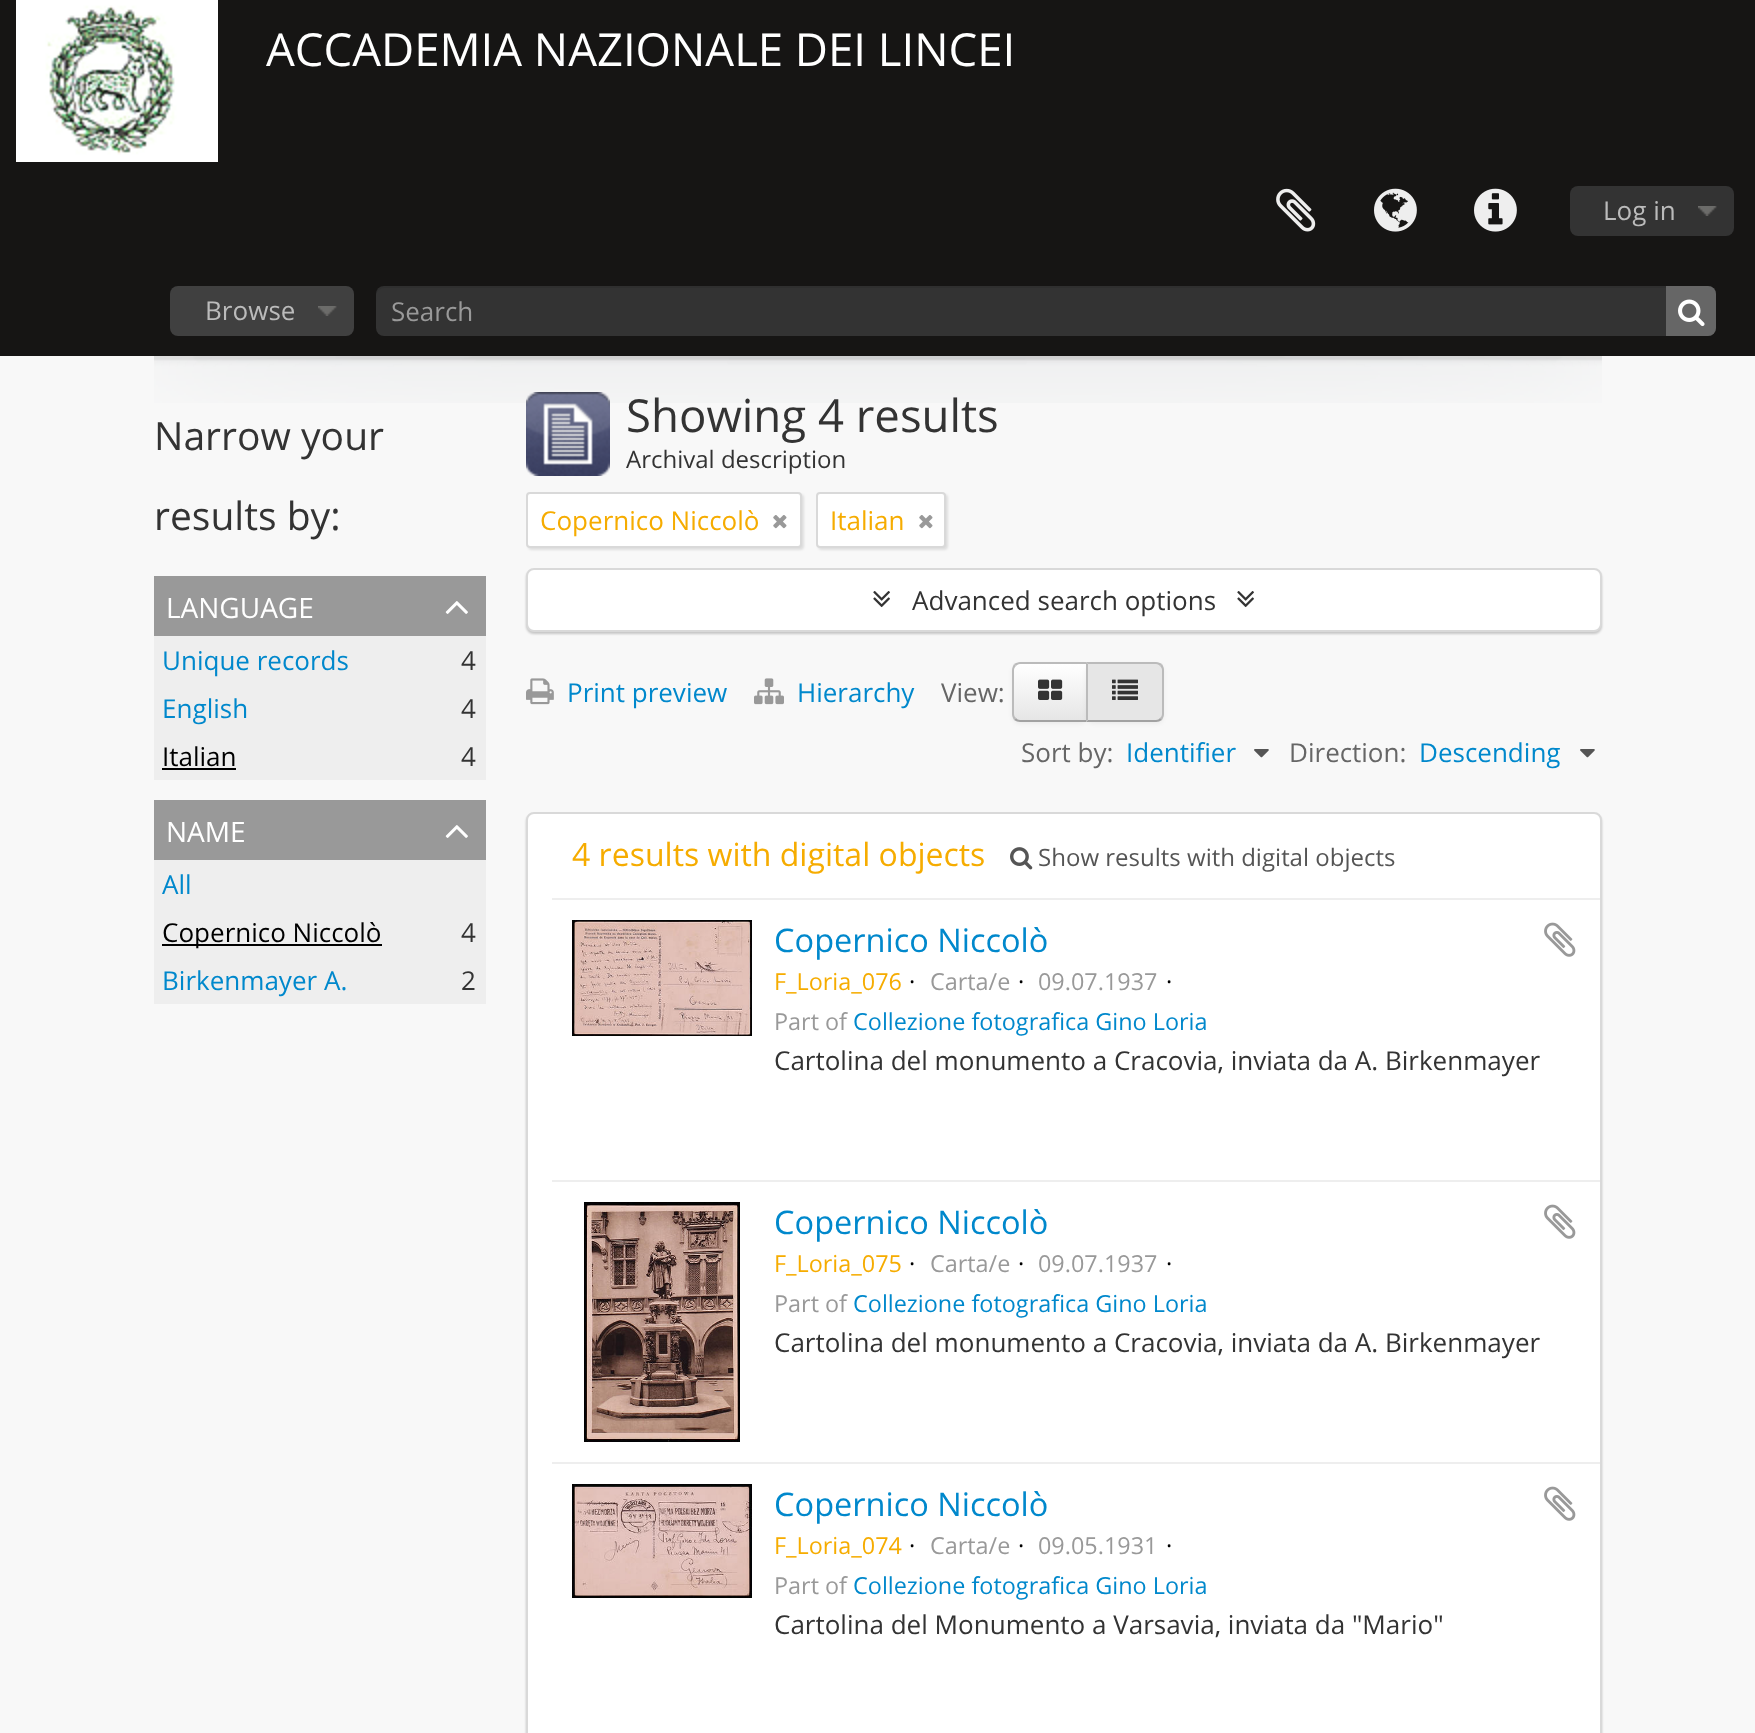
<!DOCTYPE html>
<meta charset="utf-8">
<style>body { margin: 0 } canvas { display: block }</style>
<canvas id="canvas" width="1755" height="1733"></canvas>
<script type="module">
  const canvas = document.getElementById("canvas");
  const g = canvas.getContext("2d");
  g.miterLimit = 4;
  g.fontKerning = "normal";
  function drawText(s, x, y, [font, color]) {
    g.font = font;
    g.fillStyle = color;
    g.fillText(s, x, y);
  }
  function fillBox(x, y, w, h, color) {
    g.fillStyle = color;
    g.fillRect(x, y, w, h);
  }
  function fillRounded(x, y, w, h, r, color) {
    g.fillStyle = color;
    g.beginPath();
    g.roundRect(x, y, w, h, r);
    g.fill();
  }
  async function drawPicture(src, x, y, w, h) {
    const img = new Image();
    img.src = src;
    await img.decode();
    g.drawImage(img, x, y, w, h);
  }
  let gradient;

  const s1 = ["45.5px Open Sans", "#FFFFFF"];
  const s2 = ["26px Open Sans", "#BBBBBB"];
  const s3 = ["26px Open Sans", "#999999"];
  const s4 = ["39px Open Sans", "#333333"];
  const s5 = ["28px Open Sans", "#FFFFFF"];
  const s6 = ["26px Open Sans", "#0088CC"];
  const s7 = ["26px Open Sans", "#333333"];
  const s8 = ["26px Open Sans", "#000000"];
  const s9 = ["45.5px Open Sans", "#333333"];
  const s10 = ["24px Open Sans", "#333333"];
  const s11 = ["26px Open Sans", "#F6AC00"];
  const s12 = ["26px Open Sans", "#666666"];
  const s13 = ["32px Open Sans", "#F6AC00"];
  const s14 = ["24px Open Sans", "#555555"];
  const s15 = ["32.5px Open Sans", "#0088CC"];
  const s16 = ["23.4px Open Sans", "#F6AC00"];
  const s17 = ["23.4px Open Sans", "#000000"];
  const s18 = ["23.4px Open Sans", "#999999"];
  const s19 = ["23.4px Open Sans", "#0088CC"];

  fillBox(0, 0, 1755, 1733, "#F8F8F8");
  fillBox(0, 0, 1755, 356, "#161514");
  await drawPicture("pic1.png", 16, 0, 202, 162);
  drawText("ACCADEMIA NAZIONALE DEI LINCEI", 266, 66, s1);
  await drawPicture("pic2.png", 1276, 188, 40, 44);
  await drawPicture("pic3.png", 1374, 188, 43, 44);
  await drawPicture("pic4.png", 1474, 188, 43, 44);
  fillRounded(1570, 186, 164, 50, 8, "#333333");
  await drawPicture("pic5.png", 1698, 206, 19, 10);
  drawText("Log in", 1603, 220, s2);
  fillRounded(170, 286, 184, 50, 8, "#404040");
  await drawPicture("pic6.png", 318, 306, 19, 10);
  drawText("Browse", 205, 320, s2);
  fillRounded(376, 286, 1340, 50, 8, "#333333");
  g.fillStyle = "rgba(0, 0, 0, 0.07)";
  g.beginPath();
  g.moveTo(384, 288);
  g.lineTo(1708, 288);
  g.bezierCurveTo(1712, 288, 1716, 292, 1716, 296);
  g.lineTo(1716, 294);
  g.bezierCurveTo(1716, 290, 1712, 286, 1708, 286);
  g.lineTo(384, 286);
  g.bezierCurveTo(380, 286, 376, 290, 376, 294);
  g.lineTo(376, 296);
  g.bezierCurveTo(376, 292, 380, 288, 384, 288);
  g.closePath();
  g.fill();
  drawText("Search", 391, 321, s3);
  g.fillStyle = "#666666";
  g.beginPath();
  g.roundRect(1666, 286, 50, 50, [0, 8, 8, 0]);
  g.fill();
  await drawPicture("pic7.png", 1678, 299, 27, 28);
  await drawPicture("pic8.png", 154, 356, 1448, 47);
  drawText("Narrow your", 154, 450, s4);
  drawText("results by:", 154, 530, s4);
  fillBox(154, 576, 332, 60, "#999999");
  drawText("LANGUAGE", 166, 618, s5);
  await drawPicture("pic9.png", 445, 601, 23, 13);
  fillBox(154, 636, 332, 144, "#EEEEEE");
  drawText("Unique records", 162, 670, s6);
  drawText("4", 461, 670, s7);
  drawText("English", 162, 718, s6);
  drawText("4", 461, 718, s7);
  drawText("Italian", 162, 766, s8);
  fillBox(162, 768, 74, 2, "#000000");
  drawText("4", 461, 766, s7);
  fillBox(154, 800, 332, 60, "#999999");
  drawText("NAME", 166, 842, s5);
  await drawPicture("pic9.png", 445, 825, 23, 13);
  fillBox(154, 860, 332, 144, "#EEEEEE");
  drawText("All", 162, 894, s6);
  fillBox(162, 944, 220, 2, "#000000");
  drawText("Copernico Niccolò", 162, 942, s8);
  drawText("4", 461, 942, s7);
  drawText("Birkenmayer A.", 162, 990, s6);
  drawText("2", 461, 990, s7);
  await drawPicture("pic10.png", 526, 392, 84, 84);
  drawText("Showing 4 results", 626, 432, s9);
  drawText("Archival description", 626, 468, s10);
  g.fillStyle = "rgba(0, 0, 0, 0.1)";
  g.filter = "blur(1px)";
  g.beginPath();
  g.roundRect(528, 494, 276, 56, 4);
  g.fill();
  g.filter = "none";
  g.fillStyle = "#FFFFFF";
  g.beginPath();
  g.roundRect(527, 493, 274, 54, 3);
  g.fill();
  g.strokeStyle = "#D9D9D9";
  g.lineWidth = 2;
  g.stroke();
  drawText("Copernico Niccolò", 540, 530, s11);
  await drawPicture("pic11.png", 773, 515, 14, 14);
  g.fillStyle = "rgba(0, 0, 0, 0.1)";
  g.filter = "blur(1px)";
  g.beginPath();
  g.roundRect(818, 494, 130, 56, 4);
  g.fill();
  g.filter = "none";
  g.fillStyle = "#FFFFFF";
  g.beginPath();
  g.roundRect(817, 493, 128, 54, 3);
  g.fill();
  g.stroke();
  drawText("Italian", 830, 530, s11);
  await drawPicture("pic11.png", 919, 515, 14, 14);
  g.fillStyle = "rgba(0, 0, 0, 0.2)";
  g.filter = "blur(1px)";
  g.beginPath();
  g.roundRect(526, 570, 1076, 64, 8);
  g.fill();
  g.filter = "none";
  g.fillStyle = "#FFFFFF";
  g.beginPath();
  g.roundRect(527, 569, 1074, 62, 7);
  g.fill();
  g.stroke();
  await drawPicture("pic12.png", 873, 591, 17, 17);
  drawText("Advanced search options", 912, 610, s7);
  await drawPicture("pic12.png", 1237, 591, 17, 17);
  await drawPicture("pic13.png", 526, 678, 28, 27);
  drawText("Print preview", 567, 702, s6);
  await drawPicture("pic14.png", 754, 678, 30, 27);
  drawText("Hierarchy", 797, 702, s6);
  drawText("View:", 941, 702, s12);
  g.fillStyle = "rgba(0, 0, 0, 0.05)";
  g.filter = "blur(2px)";
  g.beginPath();
  g.roundRect(1012, 664, 76, 60, 8);
  g.fill();
  g.filter = "none";
  g.save();
  g.beginPath();
  g.roundRect(1012, 662, 76, 60, [8, 0, 0, 8]);
  g.clip();
  gradient = g.createLinearGradient(1050, 664, 1050, 720);
  gradient.addColorStop(0, "#FFFFFF");
  gradient.addColorStop(1, "#E6E6E6");
  g.fillStyle = gradient;
  g.fillRect(1012, 664, 74, 56);
  g.restore();
  g.fillStyle = "#BBBBBB";
  g.beginPath();
  g.moveTo(1020, 662);
  g.bezierCurveTo(1018, 662, 1016, 663, 1014, 664);
  g.lineTo(1016, 666);
  g.bezierCurveTo(1017, 665, 1018, 664, 1020, 664);
  g.lineTo(1086, 664);
  g.lineTo(1088, 662);
  g.closePath();
  g.fill();
  g.fillStyle = "#A2A2A2";
  g.beginPath();
  g.moveTo(1088, 722);
  g.lineTo(1086, 720);
  g.lineTo(1020, 720);
  g.bezierCurveTo(1018, 720, 1017, 719, 1016, 718);
  g.lineTo(1014, 720);
  g.bezierCurveTo(1016, 721, 1018, 722, 1020, 722);
  g.closePath();
  g.fill();
  g.fillStyle = "#BBBBBB";
  g.beginPath();
  g.moveTo(1012, 670);
  g.lineTo(1012, 714);
  g.bezierCurveTo(1012, 716, 1013, 718, 1014, 720);
  g.lineTo(1016, 718);
  g.bezierCurveTo(1015, 717, 1014, 716, 1014, 714);
  g.lineTo(1014, 670);
  g.bezierCurveTo(1014, 668, 1015, 667, 1016, 666);
  g.lineTo(1014, 664);
  g.bezierCurveTo(1013, 666, 1012, 668, 1012, 670);
  g.closePath();
  g.fill();
  await drawPicture("pic15.png", 1038, 679, 25, 21);
  g.fillStyle = "rgba(0, 0, 0, 0.05)";
  g.filter = "blur(2px)";
  g.beginPath();
  g.roundRect(1086, 664, 78, 60, 8);
  g.fill();
  g.filter = "none";
  g.fillStyle = "#E6E6E6";
  g.beginPath();
  g.roundRect(1086, 662, 78, 60, [0, 8, 8, 0]);
  g.fill();
  g.fillStyle = "#BBBBBB";
  g.beginPath();
  g.moveTo(1086, 662);
  g.lineTo(1088, 664);
  g.lineTo(1156, 664);
  g.bezierCurveTo(1158, 664, 1159, 665, 1160, 666);
  g.lineTo(1162, 664);
  g.bezierCurveTo(1160, 663, 1158, 662, 1156, 662);
  g.closePath();
  g.fill();
  g.beginPath();
  g.moveTo(1164, 714);
  g.lineTo(1164, 670);
  g.bezierCurveTo(1164, 668, 1163, 666, 1162, 664);
  g.lineTo(1160, 666);
  g.bezierCurveTo(1161, 667, 1162, 668, 1162, 670);
  g.lineTo(1162, 714);
  g.bezierCurveTo(1162, 716, 1161, 717, 1160, 718);
  g.lineTo(1162, 720);
  g.bezierCurveTo(1163, 718, 1164, 716, 1164, 714);
  g.closePath();
  g.fill();
  g.fillStyle = "#A2A2A2";
  g.beginPath();
  g.moveTo(1156, 722);
  g.bezierCurveTo(1158, 722, 1160, 721, 1162, 720);
  g.lineTo(1160, 718);
  g.bezierCurveTo(1159, 719, 1158, 720, 1156, 720);
  g.lineTo(1088, 720);
  g.lineTo(1086, 722);
  g.closePath();
  g.fill();
  g.fillStyle = "#BBBBBB";
  g.beginPath();
  g.moveTo(1086, 662);
  g.lineTo(1086, 722);
  g.lineTo(1088, 720);
  g.lineTo(1088, 664);
  g.closePath();
  g.fill();
  await drawPicture("pic16.png", 1112, 679, 26, 21);
  drawText("Sort by:", 1021, 762, s12);
  drawText("Identifier", 1126, 762, s6);
  await drawPicture("pic17.png", 1254, 749, 15, 9);
  drawText("Direction:", 1289, 762, s12);
  drawText("Descending", 1419, 762, s6);
  await drawPicture("pic17.png", 1580, 749, 15, 9);
  g.fillStyle = "rgba(0, 0, 0, 0.2)";
  g.filter = "blur(1px)";
  g.beginPath();
  g.roundRect(526, 814, 1076, 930, 8);
  g.fill();
  g.filter = "none";
  g.fillStyle = "#FFFFFF";
  g.beginPath();
  g.roundRect(527, 813, 1074, 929, 7);
  g.fill();
  g.stroke();
  fillBox(552, 898, 1048, 2, "#EEEEEE");
  drawText("4 results with digital objects", 572, 866, s13);
  await drawPicture("pic18.png", 1010, 847, 23, 23);
  drawText("Show results with digital objects", 1038, 866, s14);
  fillBox(552, 1180, 1048, 2, "#EEEEEE");
  await drawPicture("pic19.png", 572, 920, 180, 116);
  drawText("Copernico Niccolò", 774, 952, s15);
  await drawPicture("pic20.png", 1544, 922, 32, 35);
  drawText("F_Loria_076", 774, 990, s16);
  drawText("·", 909, 990, s17);
  drawText("Carta/e", 930, 990, s18);
  drawText("·", 1018, 990, s17);
  drawText("09.07.1937", 1038, 990, s18);
  drawText("·", 1166, 990, s17);
  drawText("Part of", 774, 1030, s18);
  drawText("Collezione fotografica Gino Loria", 853, 1030, s19);
  drawText("Cartolina del monumento a Cracovia, inviata da A. Birkenmayer", 774, 1070, s7);
  fillBox(552, 1462, 1048, 2, "#EEEEEE");
  await drawPicture("pic21.png", 584, 1202, 156, 240);
  drawText("Copernico Niccolò", 774, 1234, s15);
  await drawPicture("pic20.png", 1544, 1204, 32, 35);
  drawText("F_Loria_075", 774, 1272, s16);
  drawText("·", 909, 1272, s17);
  drawText("Carta/e", 930, 1272, s18);
  drawText("·", 1018, 1272, s17);
  drawText("09.07.1937", 1038, 1272, s18);
  drawText("·", 1166, 1272, s17);
  drawText("Part of", 774, 1312, s18);
  drawText("Collezione fotografica Gino Loria", 853, 1312, s19);
  drawText("Cartolina del monumento a Cracovia, inviata da A. Birkenmayer", 774, 1352, s7);
  await drawPicture("pic22.png", 572, 1484, 180, 114);
  drawText("Copernico Niccolò", 774, 1516, s15);
  await drawPicture("pic20.png", 1544, 1486, 32, 35);
  drawText("F_Loria_074", 774, 1554, s16);
  drawText("·", 909, 1554, s17);
  drawText("Carta/e", 930, 1554, s18);
  drawText("·", 1018, 1554, s17);
  drawText("09.05.1931", 1038, 1554, s18);
  drawText("·", 1166, 1554, s17);
  drawText("Part of", 774, 1594, s18);
  drawText("Collezione fotografica Gino Loria", 853, 1594, s19);
  drawText("Cartolina del Monumento a Varsavia, inviata da \"Mario\"", 774, 1634, s7);
</script>
